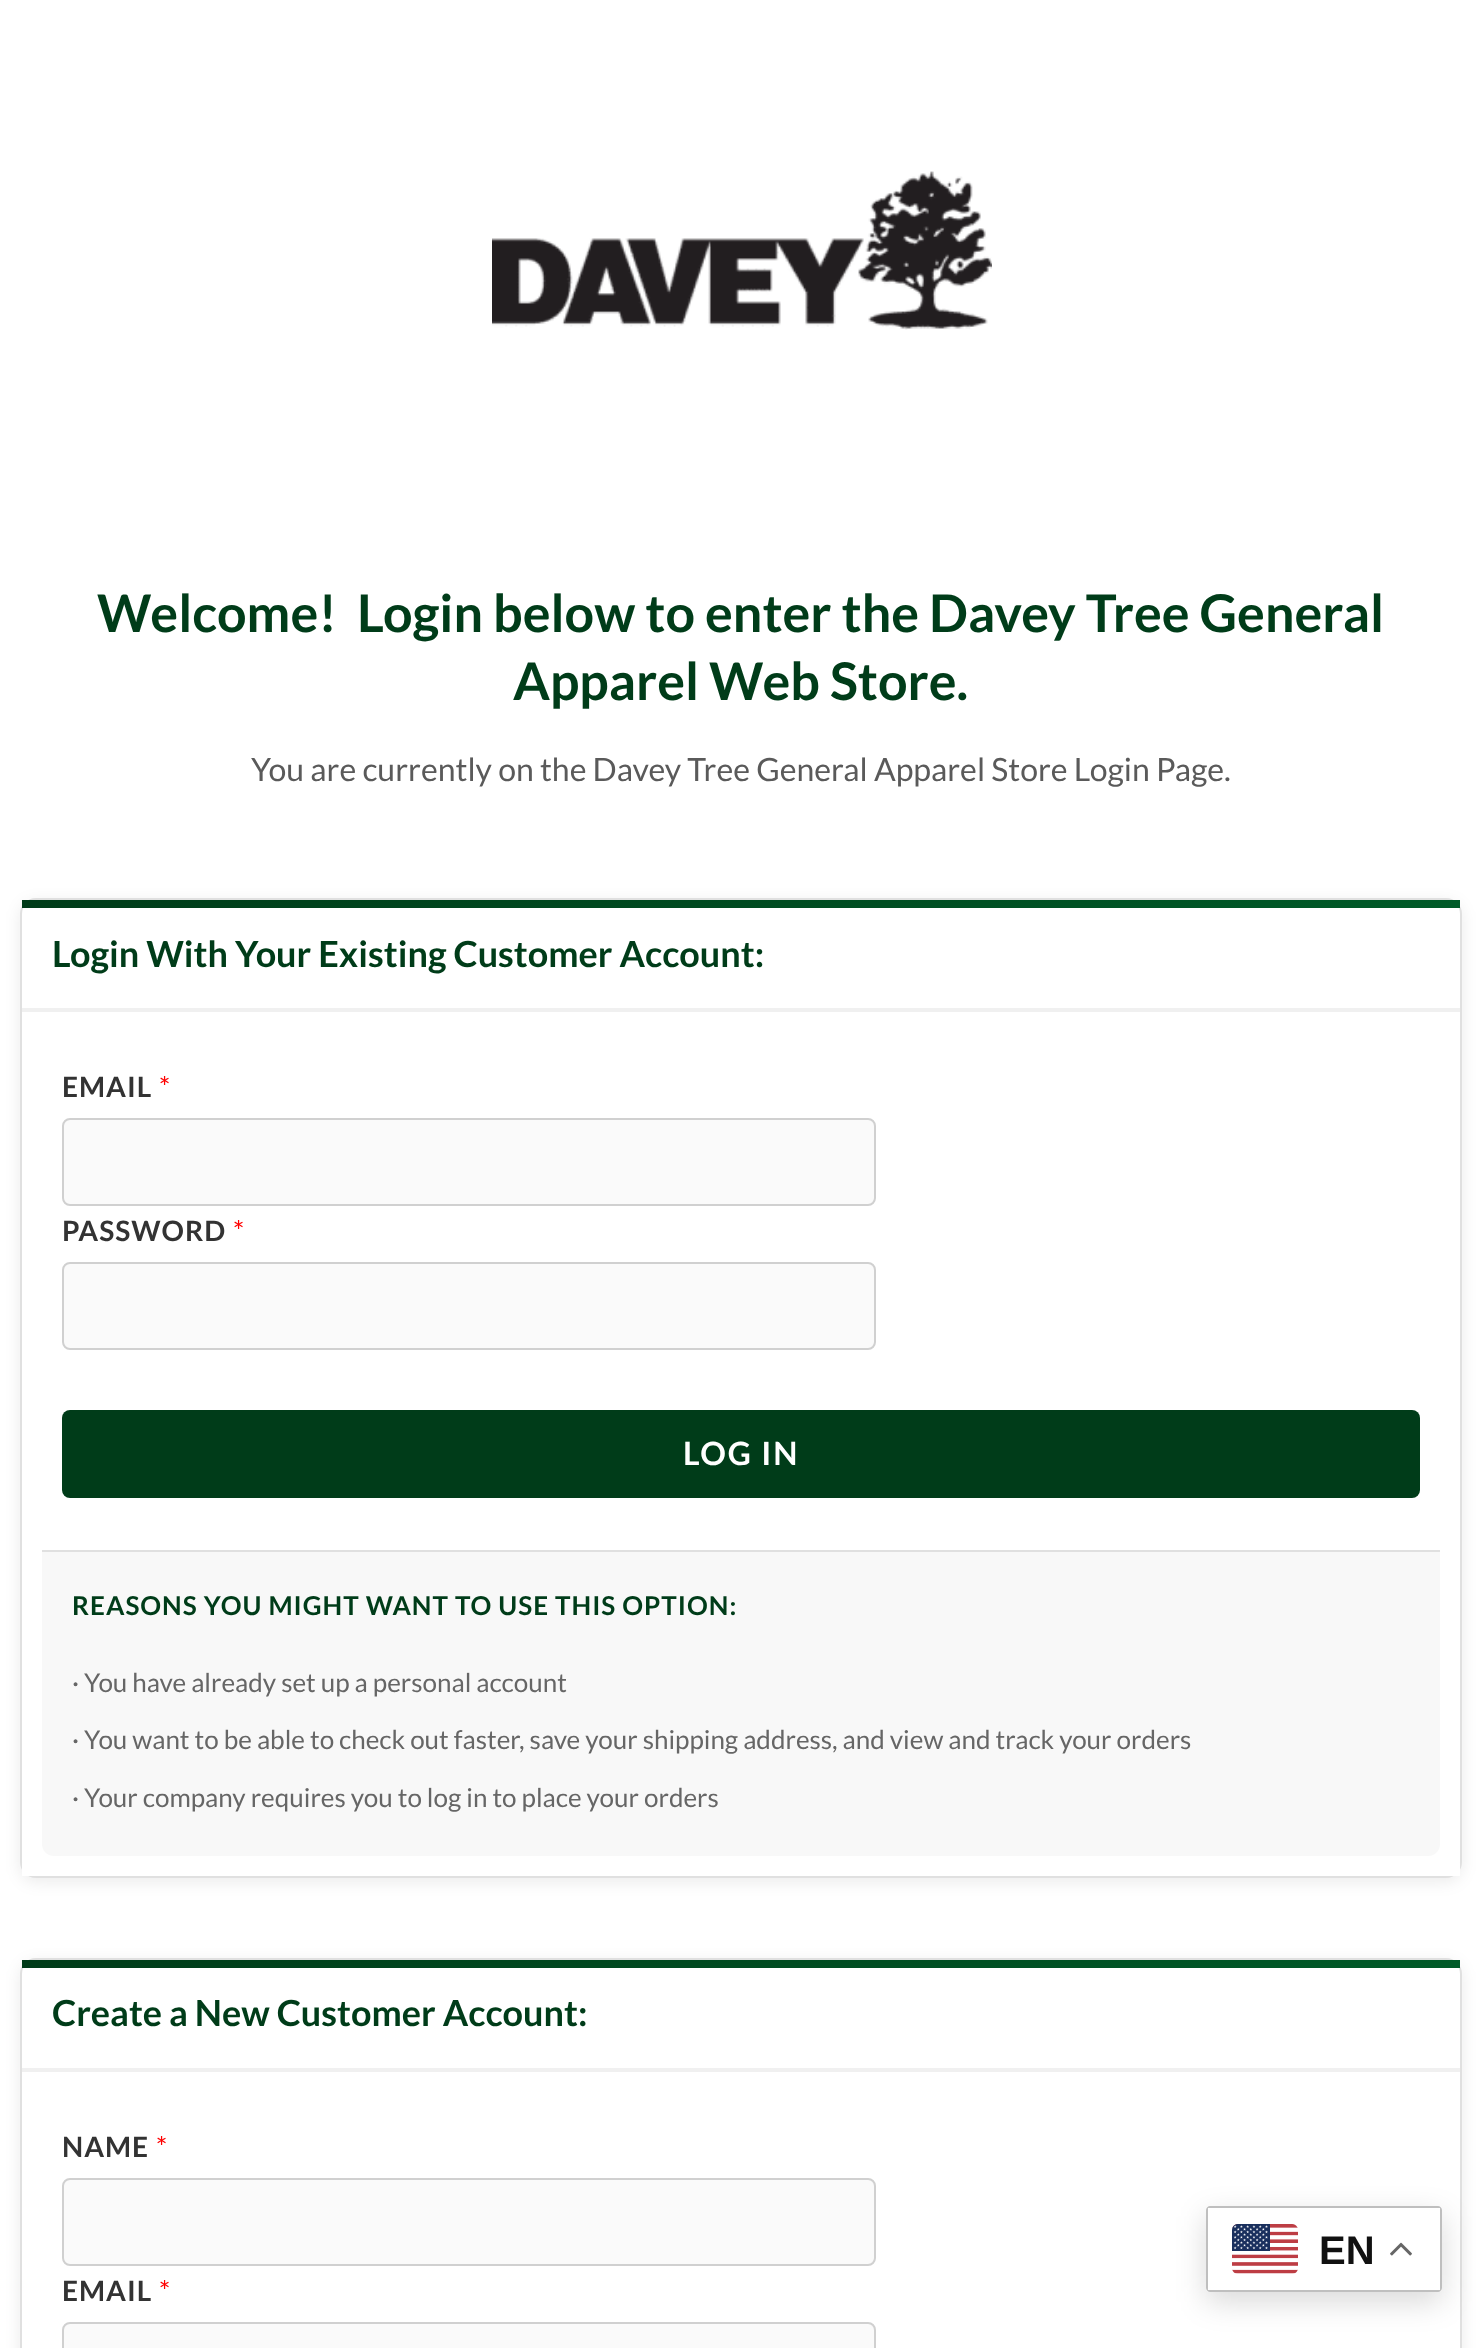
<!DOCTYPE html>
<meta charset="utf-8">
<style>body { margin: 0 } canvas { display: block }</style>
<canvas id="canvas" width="1481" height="2348"></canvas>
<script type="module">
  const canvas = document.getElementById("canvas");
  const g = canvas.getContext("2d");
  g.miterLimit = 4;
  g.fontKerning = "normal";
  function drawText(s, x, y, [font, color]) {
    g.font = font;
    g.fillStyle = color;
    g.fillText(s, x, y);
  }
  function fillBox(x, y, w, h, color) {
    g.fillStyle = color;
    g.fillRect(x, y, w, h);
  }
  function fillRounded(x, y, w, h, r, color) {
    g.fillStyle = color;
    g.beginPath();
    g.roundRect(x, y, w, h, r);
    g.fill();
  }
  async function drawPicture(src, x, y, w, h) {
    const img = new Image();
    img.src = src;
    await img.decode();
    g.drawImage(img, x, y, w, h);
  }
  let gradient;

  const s1 = ["bold 52px Lato", "#003C19"];
  const s2 = ["32px Lato", "#5A5A5A"];
  const s3 = ["bold 36px Lato", "#003C19"];
  const s4 = ["bold 28px Lato", "#333333"];
  const s5 = ["28px Lato", "#FF0000"];
  const s6 = ["bold 32px Lato", "#FFFFFF"];
  const s7 = ["bold 26px Lato", "#003C19"];
  const s8 = ["26px Lato", "#666666"];
  const s9 = ["bold 40px Liberation Sans", "#111111"];

  fillBox(0, 0, 1481, 2348, "#FFFFFF");
  await drawPicture("pic1.png", 492, 171, 500, 159);
  drawText("Welcome!  Login below to enter the Davey Tree General", 97, 632, s1);
  drawText("Apparel Web Store.", 513, 700, s1);
  drawText("You are currently on the Davey Tree General Apparel Store Login Page.", 251, 781, s2);
  g.fillStyle = "rgba(0, 0, 0, 0.08)";
  g.filter = "blur(8px)";
  g.beginPath();
  g.roundRect(20, 902, 1442, 980, 16);
  g.fill();
  g.filter = "none";
  g.fillStyle = "#FFFFFF";
  g.beginPath();
  g.roundRect(21, 899, 1440, 978, 15);
  g.fill();
  g.strokeStyle = "#E0E0E0";
  g.lineWidth = 2;
  g.stroke();
  gradient = g.createLinearGradient(22, 904, 1460, 904);
  gradient.addColorStop(0, "#003C19");
  gradient.addColorStop(1, "#005A28");
  g.fillStyle = gradient;
  g.fillRect(22, 900, 1438, 8);
  fillBox(22, 1008, 1438, 4, "#F0F0F0");
  drawText("Login With Your Existing Customer Account:", 52, 967, s3);
  fillBox(22, 1863, 1438, 13, "#FFFFFF");
  g.letterSpacing = "1px";
  drawText("EMAIL", 62, 1097, s4);
  drawText("*", 159, 1097, s5);
  g.fillStyle = "#FAFAFA";
  g.beginPath();
  g.roundRect(63, 1119, 812, 86, 7);
  g.fill();
  g.strokeStyle = "#D0D0D0";
  g.stroke();
  drawText("PASSWORD", 62, 1241, s4);
  drawText("*", 233, 1241, s5);
  g.fillStyle = "#FAFAFA";
  g.beginPath();
  g.roundRect(63, 1263, 812, 86, 7);
  g.fill();
  g.stroke();
  fillRounded(62, 1410, 1358, 88, 8, "#003C19");
  g.letterSpacing = "2px";
  drawText("LOG IN", 683, 1465, s6);
  g.fillStyle = "#F8F8F8";
  g.beginPath();
  g.roundRect(42, 1550, 1398, 306, [0, 0, 12, 12]);
  g.fill();
  fillBox(42, 1550, 1398, 2, "#E0E0E0");
  g.letterSpacing = "1px";
  drawText("REASONS YOU MIGHT WANT TO USE THIS OPTION:", 72, 1615, s7);
  g.letterSpacing = "0px";
  drawText("· You have already set up a personal account", 72, 1692, s8);
  drawText("· You want to be able to check out faster, save your shipping address, and view and track your orders", 72, 1749, s8);
  drawText("· Your company requires you to log in to place your orders", 72, 1807, s8);
  g.fillStyle = "rgba(0, 0, 0, 0.08)";
  g.filter = "blur(8px)";
  g.beginPath();
  g.roundRect(20, 1962, 1442, 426, 16);
  g.fill();
  g.filter = "none";
  g.fillStyle = "#FFFFFF";
  g.beginPath();
  g.roundRect(21, 1959, 1440, 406, 15);
  g.fill();
  g.strokeStyle = "#E0E0E0";
  g.stroke();
  gradient = g.createLinearGradient(22, 1964, 1460, 1964);
  gradient.addColorStop(0, "#003C19");
  gradient.addColorStop(1, "#005A28");
  g.fillStyle = gradient;
  g.fillRect(22, 1960, 1438, 8);
  fillBox(22, 2068, 1438, 4, "#F0F0F0");
  drawText("Create a New Customer Account:", 52, 2026, s3);
  g.letterSpacing = "1px";
  drawText("NAME", 62, 2157, s4);
  drawText("*", 156, 2157, s5);
  g.fillStyle = "#FAFAFA";
  g.beginPath();
  g.roundRect(63, 2179, 812, 86, 7);
  g.fill();
  g.strokeStyle = "#D0D0D0";
  g.stroke();
  drawText("EMAIL", 62, 2301, s4);
  drawText("*", 159, 2301, s5);
  g.fillStyle = "#FAFAFA";
  g.beginPath();
  g.roundRect(63, 2323, 812, 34, 7);
  g.fill();
  g.stroke();
  g.fillStyle = "rgba(0, 0, 0, 0.15)";
  g.filter = "blur(15px)";
  g.beginPath();
  g.roundRect(1206, 2216, 236, 86, 4);
  g.fill();
  g.filter = "none";
  fillRounded(1206, 2206, 236, 86, 4, "#FFFFFF");
  g.fillStyle = "#BFBFBF";
  g.beginPath();
  g.moveTo(1210, 2206);
  g.bezierCurveTo(1208, 2206, 1206, 2208, 1206, 2210);
  g.lineTo(1206, 2288);
  g.bezierCurveTo(1206, 2290, 1208, 2292, 1210, 2292);
  g.lineTo(1438, 2292);
  g.bezierCurveTo(1440, 2292, 1442, 2290, 1442, 2288);
  g.lineTo(1442, 2210);
  g.bezierCurveTo(1442, 2208, 1440, 2206, 1438, 2206);
  g.closePath();
  g.moveTo(1208, 2208);
  g.lineTo(1208, 2290);
  g.lineTo(1440, 2290);
  g.lineTo(1440, 2208);
  g.closePath();
  g.fill("evenodd");
  await drawPicture("pic2.png", 1232, 2224, 66, 50);
  g.letterSpacing = "0px";
  drawText("EN", 1319, 2264, s9);
  await drawPicture("pic3.png", 1390, 2242, 22, 14);
</script>
